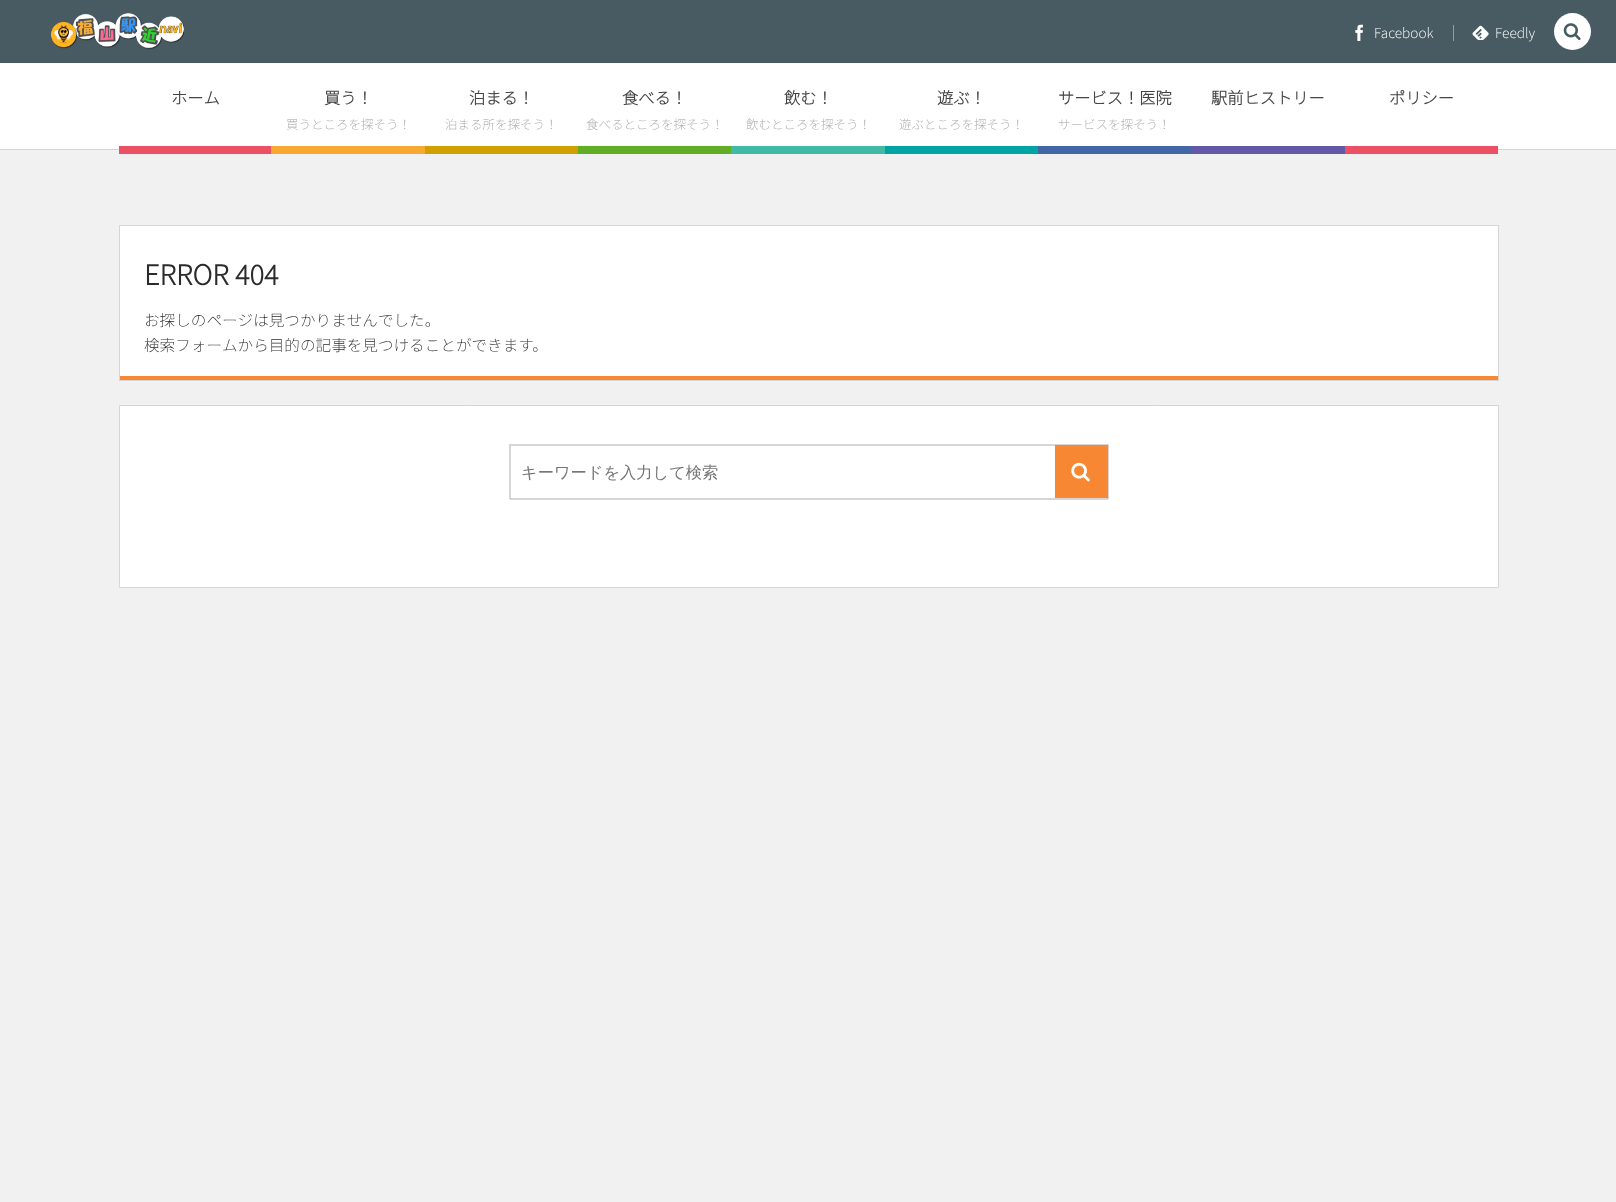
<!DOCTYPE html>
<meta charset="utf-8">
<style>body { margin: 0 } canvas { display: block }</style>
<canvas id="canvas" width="1616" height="1202"></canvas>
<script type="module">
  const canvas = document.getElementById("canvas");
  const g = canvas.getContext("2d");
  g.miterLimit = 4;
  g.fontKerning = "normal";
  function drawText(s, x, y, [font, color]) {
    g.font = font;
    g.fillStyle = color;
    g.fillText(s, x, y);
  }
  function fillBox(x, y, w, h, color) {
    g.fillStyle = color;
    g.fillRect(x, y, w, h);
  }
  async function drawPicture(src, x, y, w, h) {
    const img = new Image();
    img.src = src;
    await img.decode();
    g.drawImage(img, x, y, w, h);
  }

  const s1 = ["100 13.75px Noto Sans JP", "#FFFFFF"];
  const s2 = ["bold 16.25px Noto Sans JP", "#444444"];
  const s3 = ["100 12.5px Noto Sans JP", "#A2A2A2"];
  const s4 = ["bold 27.5px Noto Sans JP", "#2B2B2B"];
  const s5 = ["100 15.6px Noto Sans JP", "#2B2B2B"];
  const s6 = ["500 16.25px WenQuanYi Zen Hei", "#757575"];

  fillBox(0, 0, 1616, 1202, "#F1F1F1");
  fillBox(0, 63, 1616, 86, "#FFFFFF");
  fillBox(0, 0, 1616, 63, "#485B63");
  await drawPicture("pic1.png", 50, 13, 134, 37);
  await drawPicture("pic2.png", 1355, 24, 8, 17);
  drawText("Facebook", 1374, 38, s1);
  fillBox(1453, 25, 1, 16, "#919DA1");
  await drawPicture("pic3.png", 1472, 25, 17, 15);
  drawText("Feedly", 1495, 38, s1);
  drawText("ホーム", 171, 104, s2);
  fillBox(0, 149, 1616, 1, "#D6D6D6");
  fillBox(119, 146, 152, 8, "#EC5064");
  drawText("買う！", 324, 104, s2);
  drawText("買うところを探そう！", 286, 129, s3);
  fillBox(271, 146, 154, 8, "#F9A834");
  drawText("泊まる！", 469, 104, s2);
  drawText("泊まる所を探そう！", 445, 129, s3);
  fillBox(425, 146, 153, 8, "#D1A000");
  drawText("食べる！", 622, 104, s2);
  drawText("食べるところを探そう！", 586, 129, s3);
  fillBox(578, 146, 153, 8, "#61AE24");
  drawText("飲む！", 784, 104, s2);
  drawText("飲むところを探そう！", 746, 129, s3);
  fillBox(731, 146, 154, 8, "#40BAA4");
  drawText("遊ぶ！", 937, 104, s2);
  drawText("遊ぶところを探そう！", 899, 129, s3);
  fillBox(885, 146, 153, 8, "#01A4A4");
  drawText("サービス！医院", 1058, 104, s2);
  drawText("サービスを探そう！", 1058, 129, s3);
  fillBox(1038, 146, 153, 8, "#4367A4");
  drawText("駅前ヒストリー", 1211, 104, s2);
  fillBox(1191, 146, 154, 8, "#6459A9");
  drawText("ポリシー", 1389, 104, s2);
  fillBox(1345, 146, 153, 8, "#EC5064");
  fillBox(120, 226, 1378, 150, "#FFFFFF");
  g.strokeStyle = "#D6D6D6";
  g.strokeRect(119.5, 225.5, 1379, 155);
  drawText("ERROR 404", 144, 285, s4);
  drawText("お探しのページは見つかりませんでした。", 144, 326, s5);
  drawText("検索フォームから目的の記事を見つけることができます。", 144, 351, s5);
  fillBox(120, 376, 1378, 4, "#F78733");
  g.fillStyle = "#FFFFFF";
  g.beginPath();
  g.rect(119.5, 405.5, 1379, 182);
  g.fill();
  g.stroke();
  g.strokeRect(509.5, 444.5, 599, 54);
  g.strokeStyle = "rgba(170, 170, 170, 0.48)";
  g.strokeRect(510.5, 445.5, 597, 54);
  drawText("キーワードを入力して検索", 521, 478, s6);
  fillBox(1055, 445, 53, 53, "#F78733");
  await drawPicture("pic4.png", 1071, 462, 19, 20);
  g.fillStyle = "#FFFFFF";
  g.beginPath();
  g.arc(1572.5, 31.5, 18.5, 0, Math.PI * 2);
  g.fill();
  await drawPicture("pic5.png", 1563, 23, 18, 17);
</script>
